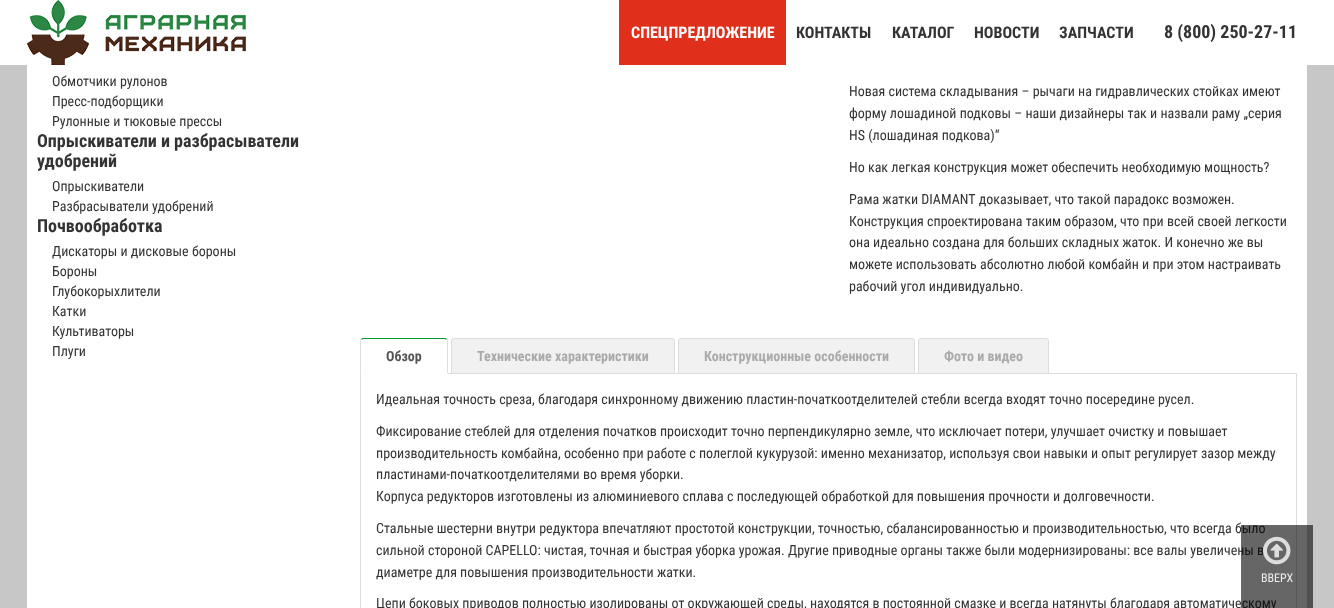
<!DOCTYPE html>
<meta charset="utf-8">
<style>body { margin: 0 } canvas { display: block }</style>
<canvas id="canvas" width="1334" height="608"></canvas>
<script type="module">
  const canvas = document.getElementById("canvas");
  const g = canvas.getContext("2d");
  g.miterLimit = 4;
  g.fontKerning = "normal";
  function drawText(s, x, y, [font, color]) {
    g.font = font;
    g.fillStyle = color;
    g.fillText(s, x, y);
  }
  function fillBox(x, y, w, h, color) {
    g.fillStyle = color;
    g.fillRect(x, y, w, h);
  }
  async function drawPicture(src, x, y, w, h) {
    const img = new Image();
    img.src = src;
    await img.decode();
    g.drawImage(img, x, y, w, h);
  }

  const s1 = ["bold 16px Roboto Condensed", "#FFFFFF"];
  const s2 = ["bold 16px Roboto Condensed", "#333333"];
  const s3 = ["bold 18px Roboto Condensed", "#333333"];
  const s4 = ["14px Roboto Condensed", "#333333"];
  const s5 = ["bold 14px Roboto Condensed", "#555555"];
  const s6 = ["bold 14px Roboto Condensed", "#AAAAAA"];
  const s7 = ["12px Roboto Condensed", "#EDEDED"];

  fillBox(0, 0, 1334, 608, "#C7C7C7");
  fillBox(0, 0, 1334, 65, "#FFFFFF");
  await drawPicture("pic1.png", 27, 0, 219, 65);
  fillBox(619, 0, 167, 65, "#E0301C");
  drawText("СПЕЦПРЕДЛОЖЕНИЕ", 631, 38, s1);
  drawText("КОНТАКТЫ", 796, 38, s2);
  drawText("КАТАЛОГ", 892, 38, s2);
  drawText("НОВОСТИ", 974, 38, s2);
  drawText("ЗАПЧАСТИ", 1059, 38, s2);
  drawText("8 (800) 250-27-11", 1164, 38, s3);
  fillBox(27, 65, 1280, 543, "#FFFFFF");
  drawText("Обмотчики рулонов", 52, 86, s4);
  drawText("Пресс-подборщики", 52, 106, s4);
  drawText("Рулонные и тюковые прессы", 52, 126, s4);
  drawText("Опрыскиватели и разбрасыватели", 37, 147, s3);
  drawText("удобрений", 37, 167, s3);
  drawText("Опрыскиватели", 52, 191, s4);
  drawText("Разбрасыватели удобрений", 52, 211, s4);
  drawText("Почвообработка", 37, 232, s3);
  drawText("Дискаторы и дисковые бороны", 52, 256, s4);
  drawText("Бороны", 52, 276, s4);
  drawText("Глубокорыхлители", 52, 296, s4);
  drawText("Катки", 52, 316, s4);
  drawText("Культиваторы", 52, 336, s4);
  drawText("Плуги", 52, 356, s4);
  drawText("Новая система складывания – рычаги на гидравлических стойках имеют", 849, 96, s4);
  drawText("форму лошадиной подковы – наши дизайнеры так и назвали раму „серия", 849, 118, s4);
  drawText("HS (лошадиная подкова)“", 849, 140, s4);
  drawText("Но как легкая конструкция может обеспечить необходимую мощность?", 849, 172, s4);
  drawText("Рама жатки DIAMANT доказывает, что такой парадокс возможен.", 849, 204, s4);
  drawText("Конструкция спроектирована таким образом, что при всей своей легкости", 849, 226, s4);
  drawText("она идеально создана для больших складных жаток. И конечно же вы", 849, 247, s4);
  drawText("можете использовать абсолютно любой комбайн и при этом настраивать", 849, 269, s4);
  drawText("рабочий угол индивидуально.", 849, 291, s4);
  g.strokeStyle = "#DDDDDD";
  g.strokeRect(360.5, 373.5, 936, 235);
  g.fillStyle = "#FFFFFF";
  g.beginPath();
  g.roundRect(360, 338, 88, 36, [3, 3, 0, 0]);
  g.fill();
  g.fillStyle = "#009933";
  g.beginPath();
  g.moveTo(363, 338);
  g.lineTo(361, 339);
  g.lineTo(362, 340);
  g.lineTo(363, 339);
  g.lineTo(445, 339);
  g.lineTo(446, 340);
  g.lineTo(447, 339);
  g.lineTo(445, 338);
  g.closePath();
  g.fill();
  g.fillStyle = "#DDDDDD";
  g.beginPath();
  g.moveTo(448, 374);
  g.lineTo(448, 341);
  g.bezierCurveTo(448, 340, 448, 339, 447, 339);
  g.lineTo(446.5, 339.5);
  g.lineTo(447, 341);
  g.lineTo(447, 373);
  g.closePath();
  g.fill();
  g.fillStyle = "#FFFFFF";
  g.beginPath();
  g.moveTo(448, 374);
  g.lineTo(447, 373);
  g.lineTo(361, 373);
  g.lineTo(360, 374);
  g.closePath();
  g.fill();
  g.fillStyle = "#DDDDDD";
  g.beginPath();
  g.moveTo(360, 374);
  g.lineTo(361, 373);
  g.lineTo(361, 341);
  g.lineTo(361.5, 339.5);
  g.lineTo(361, 339);
  g.bezierCurveTo(360, 339, 360, 340, 360, 341);
  g.closePath();
  g.fill();
  drawText("Обзор", 386, 361, s5);
  g.fillStyle = "#F1F1F1";
  g.beginPath();
  g.roundRect(451.5, 338.5, 223, 35, [2.5, 2.5, 0, 0]);
  g.fill();
  g.stroke();
  drawText("Технические характеристики", 477, 361, s6);
  g.fillStyle = "#F1F1F1";
  g.beginPath();
  g.roundRect(678.5, 338.5, 236, 35, [2.5, 2.5, 0, 0]);
  g.fill();
  g.stroke();
  drawText("Конструкционные особенности", 704, 361, s6);
  g.fillStyle = "#F1F1F1";
  g.beginPath();
  g.roundRect(918.5, 338.5, 130, 35, [2.5, 2.5, 0, 0]);
  g.fill();
  g.stroke();
  drawText("Фото и видео", 944, 361, s6);
  drawText("Идеальная точность среза, благодаря синхронному движению пластин-початкоотделителей стебли всегда входят точно посередине русел.", 376, 404, s4);
  drawText("Фиксирование стеблей для отделения початков происходит точно перпендикулярно земле, что исключает потери, улучшает очистку и повышает", 376, 436, s4);
  drawText("производительность комбайна, особенно при работе с полеглой кукурузой: именно механизатор, используя свои навыки и опыт регулирует зазор между", 376, 458, s4);
  drawText("пластинами-початкоотделителями во время уборки.", 376, 479, s4);
  drawText("Корпуса редукторов изготовлены из алюминиевого сплава с последующей обработкой для повышения прочности и долговечности.", 376, 501, s4);
  drawText("Стальные шестерни внутри редуктора впечатляют простотой конструкции, точностью, сбалансированностью и производительностью, что всегда было", 376, 533, s4);
  drawText("сильной стороной CAPELLO: чистая, точная и быстрая уборка урожая. Другие приводные органы также были модернизированы: все валы увеличены в", 376, 555, s4);
  drawText("диаметре для повышения производительности жатки.", 376, 577, s4);
  drawText("Цепи боковых приводов полностью изолированы от окружающей среды, находятся в постоянной смазке и всегда натянуты благодаря автоматическому", 376, 608, s4);
  fillBox(1241, 525, 72, 83, "rgba(0, 0, 0, 0.6)");
  await drawPicture("pic2.png", 1263, 536, 28, 29);
  drawText("ВВЕРХ", 1261, 582, s7);
</script>
